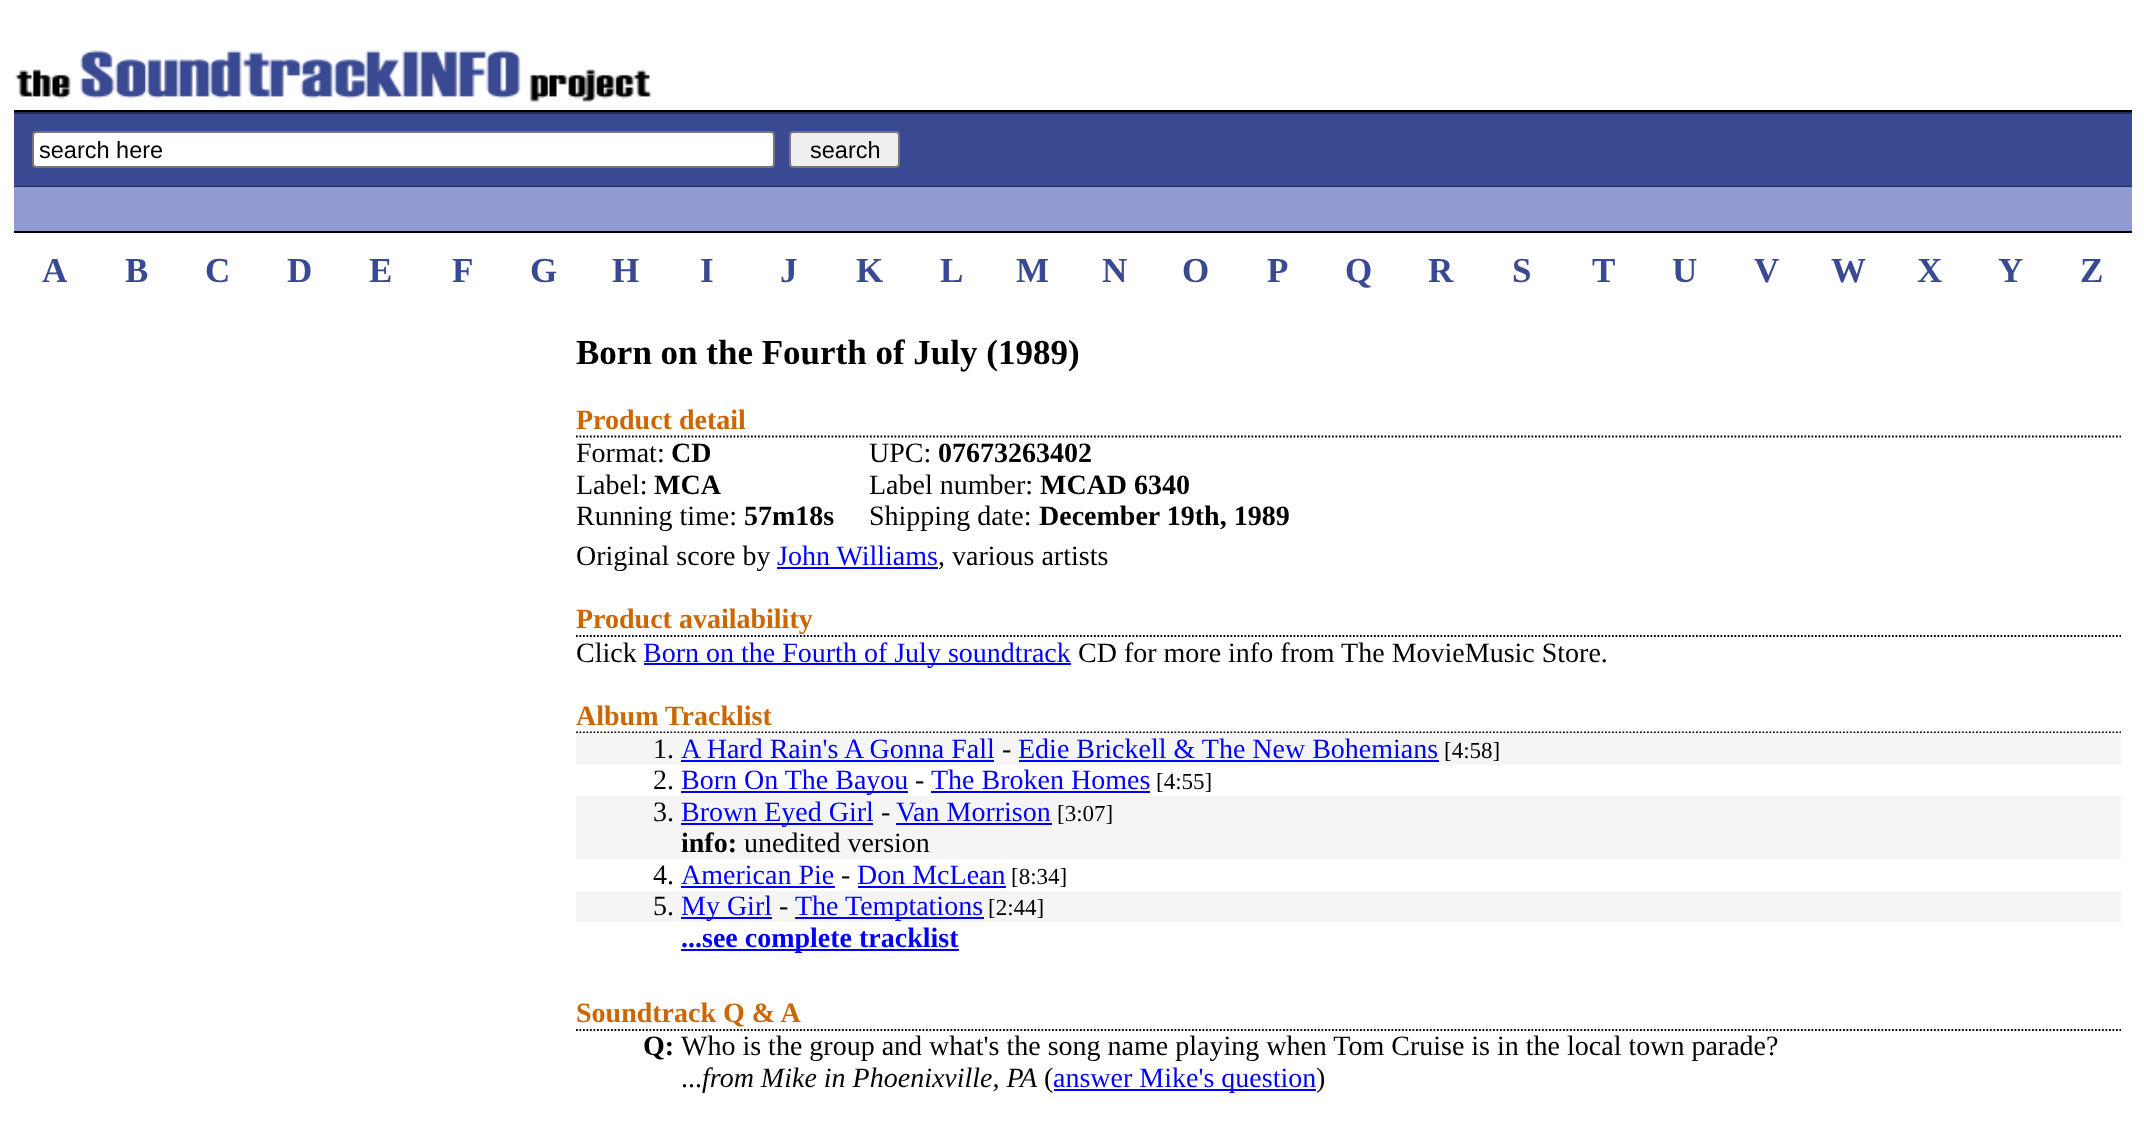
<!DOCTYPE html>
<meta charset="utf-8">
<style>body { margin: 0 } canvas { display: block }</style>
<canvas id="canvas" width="2144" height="1123"></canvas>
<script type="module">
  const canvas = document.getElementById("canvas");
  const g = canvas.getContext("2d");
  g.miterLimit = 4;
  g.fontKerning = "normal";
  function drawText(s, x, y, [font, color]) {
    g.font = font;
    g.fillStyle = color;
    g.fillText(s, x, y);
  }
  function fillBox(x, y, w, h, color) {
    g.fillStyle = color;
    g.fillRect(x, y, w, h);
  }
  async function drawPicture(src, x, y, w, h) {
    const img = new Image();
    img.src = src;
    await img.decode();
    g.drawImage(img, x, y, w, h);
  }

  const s1 = ["23.5px Liberation Sans", "#000000"];
  const s2 = ["bold 35px Liberation Serif", "#3A4A92"];
  const s3 = ["bold 35px Liberation Serif", "#000000"];
  const s4 = ["bold 28px Liberation Serif", "#CC6600"];
  const s5 = ["28px Liberation Serif", "#000000"];
  const s6 = ["bold 28px Liberation Serif", "#000000"];
  const s7 = ["28px Liberation Serif", "#0000FF"];
  const s8 = ["23px Liberation Serif", "#000000"];
  const s9 = ["bold 28px Liberation Serif", "#0000FF"];
  const s10 = ["italic 28px Liberation Serif", "#000000"];

  fillBox(0, 0, 2144, 1123, "#FFFFFF");
  fillBox(14, 110, 2118, 2, "#000000");
  await drawPicture("pic1.png", 15, 50, 637, 52);
  fillBox(14, 114, 2118, 72, "#3A4A92");
  fillBox(14, 112, 2118, 2, "#222D57");
  fillBox(14, 186, 2118, 1, "#222D57");
  g.fillStyle = "#FFFFFF";
  g.beginPath();
  g.roundRect(33, 132, 741, 35, 3);
  g.fill();
  g.strokeStyle = "#767676";
  g.lineWidth = 2;
  g.stroke();
  drawText("search here", 39, 158, s1);
  g.fillStyle = "#EFEFEF";
  g.beginPath();
  g.roundRect(790, 132, 109, 35, 3);
  g.fill();
  g.stroke();
  drawText("search", 810, 158, s1);
  fillBox(14, 187, 2118, 44, "#8F9BD2");
  fillBox(14, 231, 2118, 2, "#000000");
  drawText("A", 42, 282, s2);
  drawText("B", 125, 282, s2);
  drawText("C", 205, 282, s2);
  drawText("D", 287, 282, s2);
  drawText("E", 369, 282, s2);
  drawText("F", 452, 282, s2);
  drawText("G", 530, 282, s2);
  drawText("H", 612, 282, s2);
  drawText("I", 700, 282, s2);
  drawText("J", 780, 282, s2);
  drawText("K", 856, 282, s2);
  drawText("L", 940, 282, s2);
  drawText("M", 1016, 282, s2);
  drawText("N", 1102, 282, s2);
  drawText("O", 1182, 282, s2);
  drawText("P", 1267, 282, s2);
  drawText("Q", 1345, 282, s2);
  drawText("R", 1428, 282, s2);
  drawText("S", 1512, 282, s2);
  drawText("T", 1592, 282, s2);
  drawText("U", 1672, 282, s2);
  drawText("V", 1754, 282, s2);
  drawText("W", 1831, 282, s2);
  drawText("X", 1917, 282, s2);
  drawText("Y", 1998, 282, s2);
  drawText("Z", 2080, 282, s2);
  drawText("Born on the Fourth of July (1989)", 576, 364, s3);
  g.beginPath();
  g.moveTo(576, 436.5);
  g.lineTo(2121, 436.5);
  g.strokeStyle = "#000000";
  g.lineWidth = 1.8;
  g.setLineDash([1.75, 1.75]);
  g.stroke();
  drawText("Product detail", 576, 429, s4);
  drawText("Format:", 576, 462, s5);
  drawText("CD", 671, 462, s6);
  drawText("UPC:", 869, 462, s5);
  drawText("07673263402", 938, 462, s6);
  drawText("Label:", 576, 494, s5);
  drawText("MCA", 654, 494, s6);
  drawText("Label number:", 869, 494, s5);
  drawText("MCAD 6340", 1040, 494, s6);
  drawText("Running time:", 576, 525, s5);
  drawText("57m18s", 744, 525, s6);
  drawText("Shipping date:", 869, 525, s5);
  drawText("December 19th, 1989", 1039, 525, s6);
  drawText("Original score by", 576, 565, s5);
  drawText("John Williams", 777, 565, s7);
  fillBox(777, 567, 161, 2, "#0000FF");
  drawText(", various artists", 938, 565, s5);
  g.beginPath();
  g.moveTo(576, 636);
  g.lineTo(2121, 636);
  g.stroke();
  drawText("Product availability", 576, 628, s4);
  drawText("Click", 576, 662, s5);
  fillBox(644, 663, 427, 2, "#0000FF");
  drawText("Born on the Fourth of July soundtrack", 643, 662, s7);
  drawText("CD for more info from The MovieMusic Store.", 1078, 662, s5);
  g.beginPath();
  g.moveTo(576, 732.5);
  g.lineTo(2121, 732.5);
  g.stroke();
  drawText("Album Tracklist", 576, 725, s4);
  fillBox(576, 733, 1545, 32, "#F5F5F5");
  drawText("1.", 653, 758, s5);
  drawText("A Hard Rain's A Gonna Fall", 681, 758, s7);
  fillBox(681, 760, 313, 2, "#0000FF");
  drawText("-", 1002, 758, s5);
  drawText("Edie Brickell & The New Bohemians", 1018, 758, s7);
  fillBox(1019, 760, 420, 2, "#0000FF");
  drawText("[4:58]", 1444, 758, s8);
  drawText("2.", 653, 789, s5);
  fillBox(681, 791, 227, 2, "#0000FF");
  drawText("Born On The Bayou", 681, 789, s7);
  drawText("-", 915, 789, s5);
  drawText("The Broken Homes", 931, 789, s7);
  fillBox(931, 791, 219, 2, "#0000FF");
  drawText("[4:55]", 1156, 789, s8);
  fillBox(576, 796, 1545, 63, "#F5F5F5");
  drawText("3.", 653, 821, s5);
  fillBox(681, 823, 192, 2, "#0000FF");
  drawText("Brown Eyed Girl", 681, 821, s7);
  drawText("-", 881, 821, s5);
  drawText("Van Morrison", 896, 821, s7);
  fillBox(896, 823, 156, 2, "#0000FF");
  drawText("[3:07]", 1057, 821, s8);
  drawText("info:", 681, 852, s6);
  drawText("unedited version", 744, 852, s5);
  drawText("4.", 653, 884, s5);
  drawText("American Pie", 681, 884, s7);
  fillBox(681, 886, 154, 2, "#0000FF");
  drawText("-", 841, 884, s5);
  drawText("Don McLean", 857, 884, s7);
  fillBox(858, 886, 148, 2, "#0000FF");
  drawText("[8:34]", 1011, 884, s8);
  fillBox(576, 891, 1545, 31, "#F5F5F5");
  drawText("5.", 653, 915, s5);
  fillBox(681, 917, 91, 2, "#0000FF");
  drawText("My Girl", 681, 915, s7);
  drawText("-", 779, 915, s5);
  fillBox(795, 917, 189, 2, "#0000FF");
  drawText("The Temptations", 795, 915, s7);
  drawText("[2:44]", 988, 915, s8);
  fillBox(681, 949, 278, 2, "#0000FF");
  drawText("...see complete tracklist", 681, 947, s9);
  g.beginPath();
  g.moveTo(576, 1030);
  g.lineTo(2121, 1030);
  g.stroke();
  drawText("Soundtrack Q & A", 576, 1022, s4);
  drawText("Q:", 643, 1055, s6);
  drawText("Who is the group and what's the song name playing when Tom Cruise is in the local town parade?", 681, 1055, s5);
  drawText("...", 681, 1087, s5);
  drawText("from Mike in Phoenixville, PA", 702, 1087, s10);
  drawText("(", 1044, 1087, s5);
  fillBox(1054, 1089, 262, 2, "#0000FF");
  drawText("answer Mike's question", 1053, 1087, s7);
  drawText(")", 1316, 1087, s5);
</script>
